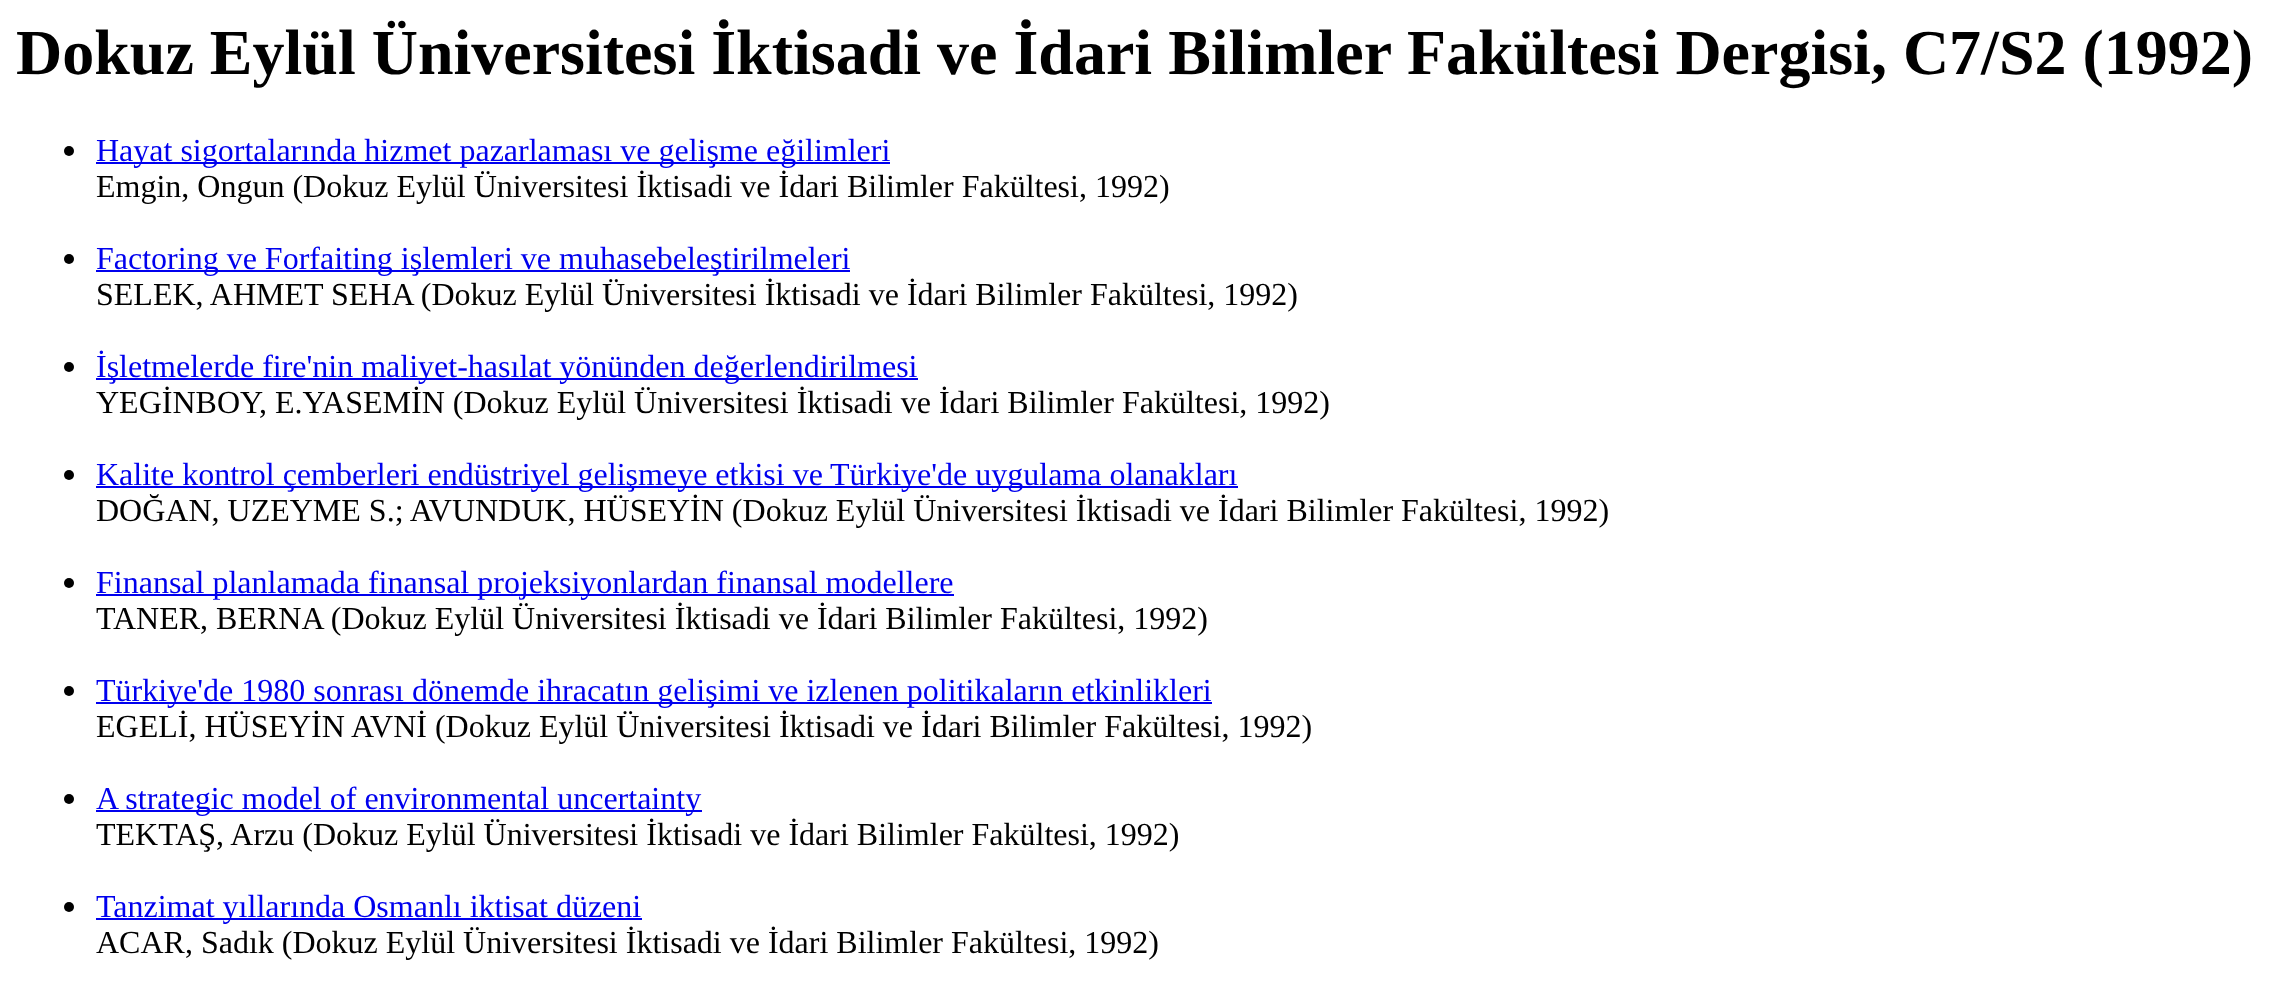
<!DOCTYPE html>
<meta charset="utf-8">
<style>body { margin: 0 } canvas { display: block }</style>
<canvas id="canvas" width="2281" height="1001"></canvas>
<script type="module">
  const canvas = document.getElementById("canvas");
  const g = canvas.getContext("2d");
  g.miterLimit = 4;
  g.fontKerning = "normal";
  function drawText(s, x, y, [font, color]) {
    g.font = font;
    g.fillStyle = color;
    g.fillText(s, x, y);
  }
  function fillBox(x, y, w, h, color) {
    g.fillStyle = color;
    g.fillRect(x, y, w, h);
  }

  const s1 = ["bold 64px Liberation Serif", "#000000"];
  const s2 = ["32px Liberation Serif", "#0000EE"];
  const s3 = ["32px Liberation Serif", "#000000"];

  fillBox(0, 0, 2281, 1001, "#FFFFFF");
  drawText("Dokuz Eylül Üniversitesi İktisadi ve İdari Bilimler Fakültesi Dergisi, C7/S2 (1992)", 16, 74, s1);
  g.beginPath();
  g.arc(69, 151, 5, 0, Math.PI * 2);
  g.fill();
  fillBox(96, 162, 794, 2, "#0000EE");
  drawText("Hayat sigortalarında hizmet pazarlaması ve gelişme eğilimleri", 96, 161, s2);
  drawText("Emgin, Ongun (Dokuz Eylül Üniversitesi İktisadi ve İdari Bilimler Fakültesi, 1992)", 96, 197, s3);
  g.beginPath();
  g.arc(69, 259, 5, 0, Math.PI * 2);
  g.fill();
  fillBox(96, 270, 754, 2, "#0000EE");
  drawText("Factoring ve Forfaiting işlemleri ve muhasebeleştirilmeleri", 96, 269, s2);
  drawText("SELEK, AHMET SEHA (Dokuz Eylül Üniversitesi İktisadi ve İdari Bilimler Fakültesi, 1992)", 96, 305, s3);
  g.beginPath();
  g.arc(69, 367, 5, 0, Math.PI * 2);
  g.fill();
  fillBox(96, 378, 822, 2, "#0000EE");
  drawText("İşletmelerde fire'nin maliyet-hasılat yönünden değerlendirilmesi", 96, 377, s2);
  drawText("YEGİNBOY, E.YASEMİN (Dokuz Eylül Üniversitesi İktisadi ve İdari Bilimler Fakültesi, 1992)", 96, 413, s3);
  g.beginPath();
  g.arc(69, 475, 5, 0, Math.PI * 2);
  g.fill();
  fillBox(96, 486, 1142, 2, "#0000EE");
  drawText("Kalite kontrol çemberleri endüstriyel gelişmeye etkisi ve", 96, 485, s2);
  drawText("Türkiye'de uygulama olanakları", 830, 485, s2);
  drawText("DOĞAN, UZEYME S.; AVUNDUK, HÜSEYİN (Dokuz Eylül Üniversitesi İktisadi ve İdari Bilimler Fakültesi, 1992)", 96, 521, s3);
  g.beginPath();
  g.arc(69, 583, 5, 0, Math.PI * 2);
  g.fill();
  fillBox(96, 594, 858, 2, "#0000EE");
  drawText("Finansal planlamada finansal projeksiyonlardan finansal modellere", 96, 593, s2);
  drawText("TANER, BERNA (Dokuz Eylül Üniversitesi İktisadi ve İdari Bilimler Fakültesi, 1992)", 96, 629, s3);
  g.beginPath();
  g.arc(69, 691, 5, 0, Math.PI * 2);
  g.fill();
  fillBox(96, 702, 1116, 2, "#0000EE");
  drawText("Türkiye'de 1980 sonrası dönemde ihracatın gelişimi ve izlenen politikaların etkinlikleri", 96, 701, s2);
  drawText("EGELİ, HÜSEYİN AVNİ (Dokuz Eylül Üniversitesi İktisadi ve İdari Bilimler Fakültesi, 1992)", 96, 737, s3);
  g.beginPath();
  g.arc(69, 799, 5, 0, Math.PI * 2);
  g.fill();
  fillBox(96, 810, 606, 2, "#0000EE");
  drawText("A strategic model of environmental uncertainty", 96, 809, s2);
  drawText("TEKTAŞ, Arzu (Dokuz Eylül Üniversitesi İktisadi ve İdari Bilimler Fakültesi, 1992)", 96, 845, s3);
  g.beginPath();
  g.arc(69, 907, 5, 0, Math.PI * 2);
  g.fill();
  fillBox(96, 918, 546, 2, "#0000EE");
  drawText("Tanzimat yıllarında Osmanlı iktisat düzeni", 96, 917, s2);
  drawText("ACAR, Sadık (Dokuz Eylül Üniversitesi İktisadi ve İdari Bilimler Fakültesi, 1992)", 96, 953, s3);
</script>
